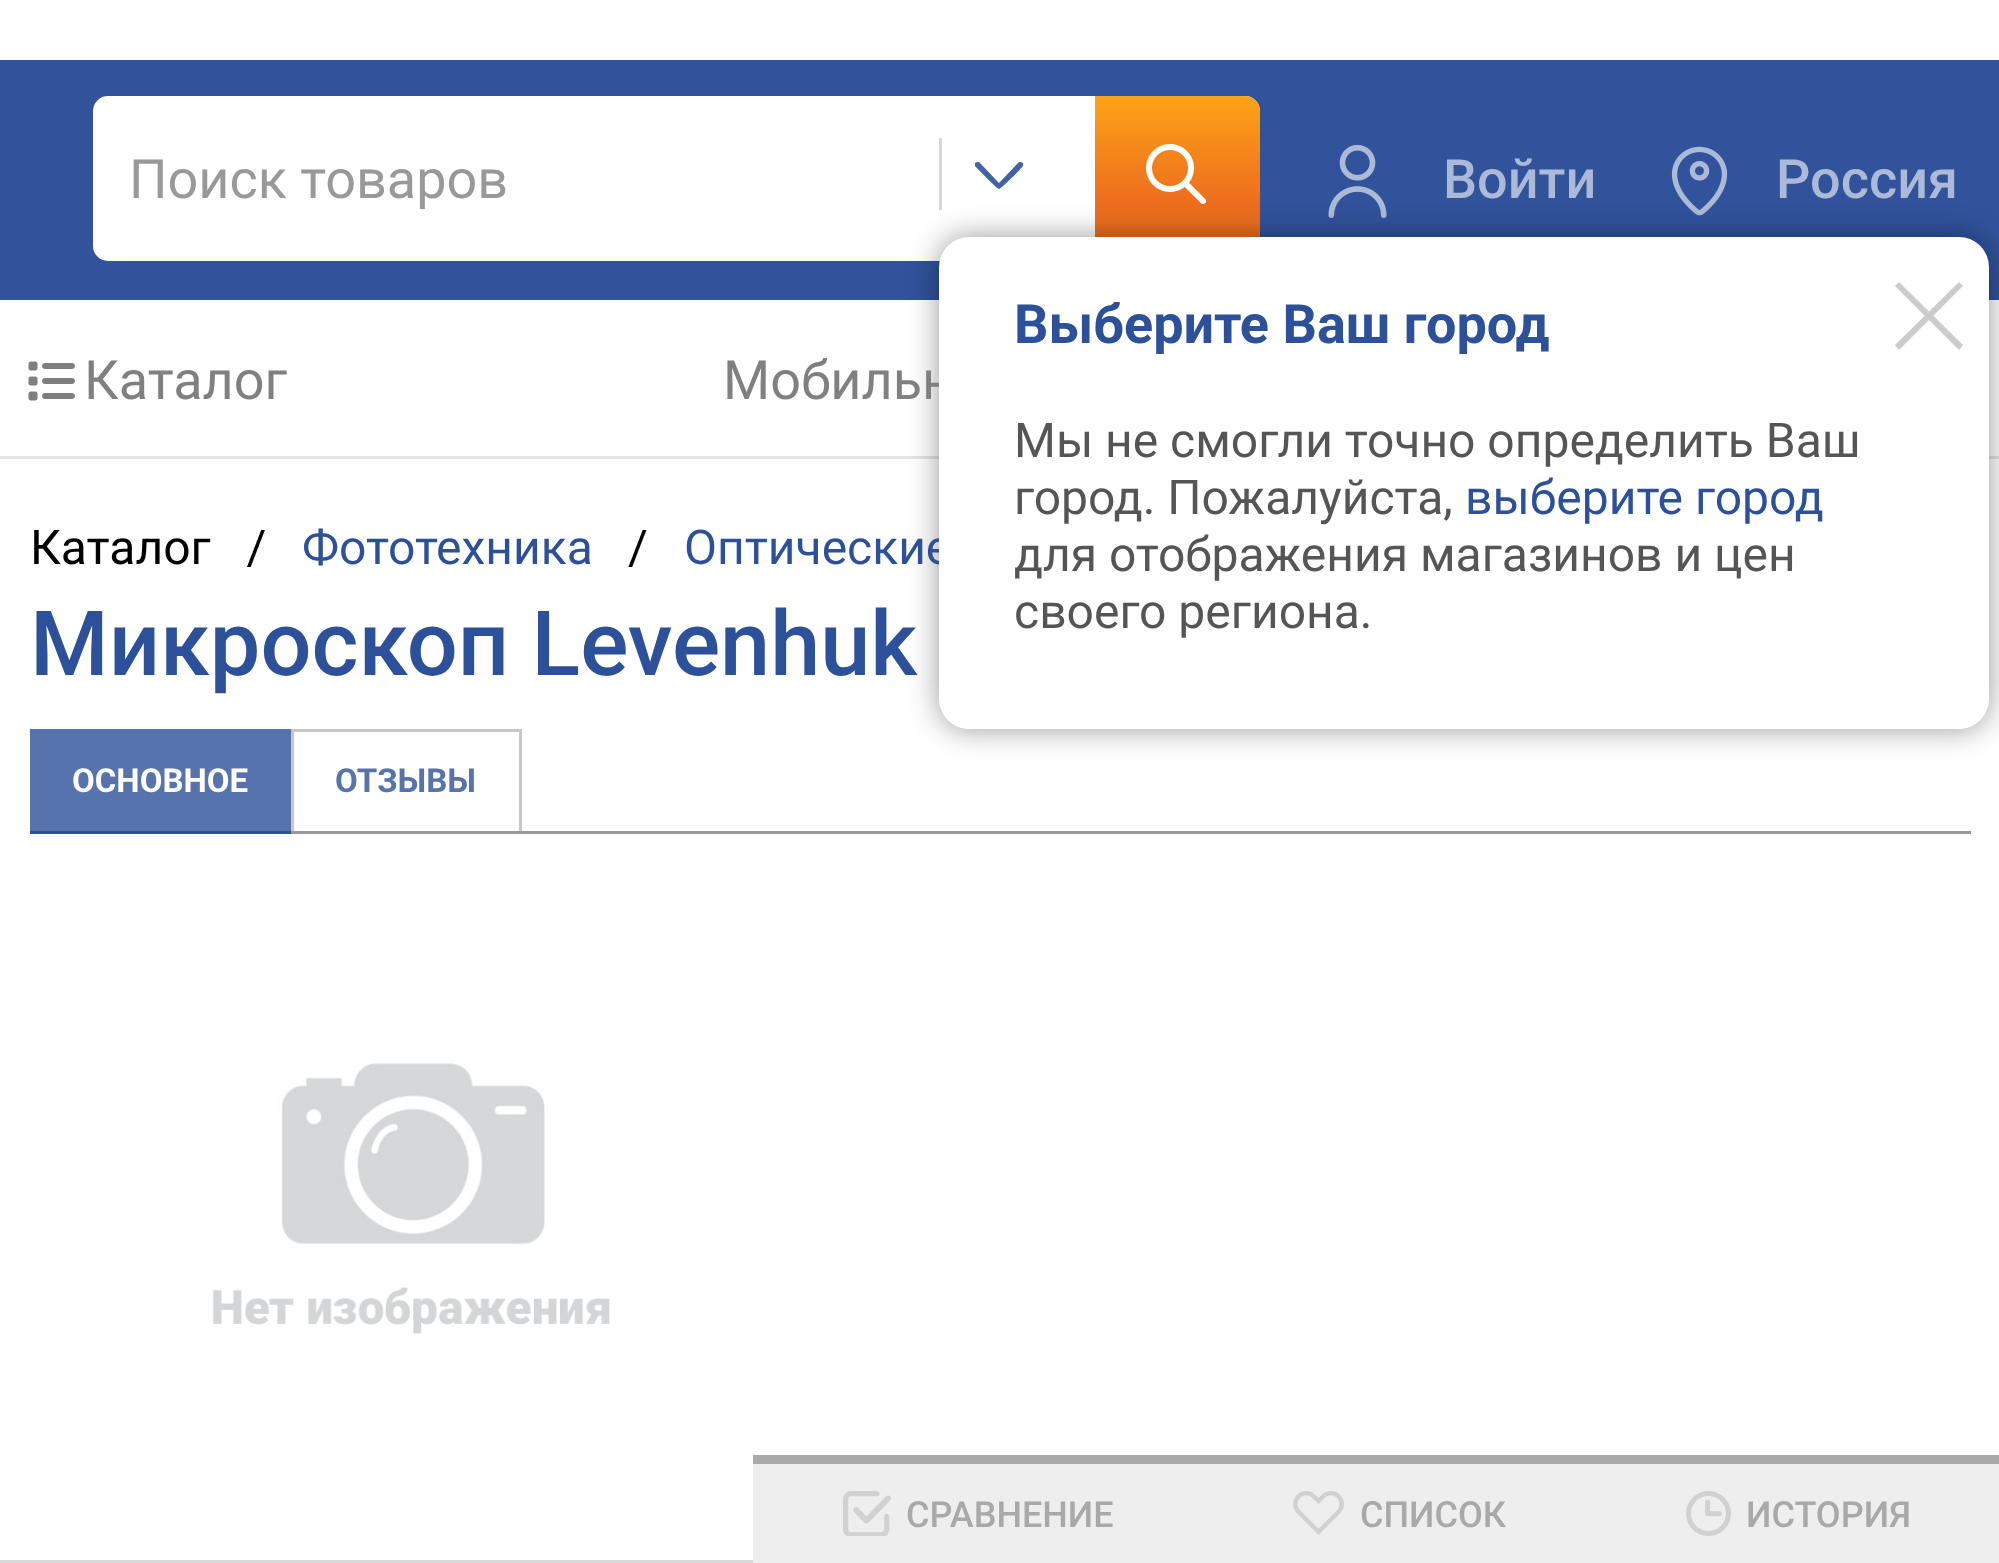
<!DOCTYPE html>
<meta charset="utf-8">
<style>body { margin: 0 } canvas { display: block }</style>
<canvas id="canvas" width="1999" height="1563"></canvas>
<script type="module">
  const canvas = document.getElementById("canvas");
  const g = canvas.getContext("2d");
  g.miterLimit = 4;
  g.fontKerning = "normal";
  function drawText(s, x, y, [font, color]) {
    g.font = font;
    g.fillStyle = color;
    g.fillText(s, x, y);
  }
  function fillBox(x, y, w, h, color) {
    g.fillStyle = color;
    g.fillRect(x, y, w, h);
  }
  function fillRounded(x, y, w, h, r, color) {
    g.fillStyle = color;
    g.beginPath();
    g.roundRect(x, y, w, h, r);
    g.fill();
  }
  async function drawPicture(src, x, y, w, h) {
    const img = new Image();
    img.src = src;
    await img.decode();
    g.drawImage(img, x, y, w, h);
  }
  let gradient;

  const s1 = ["54px Roboto", "#999999"];
  const s2 = ["500 54px Roboto", "#ACBAD7"];
  const s3 = ["54px Roboto", "#808080"];
  const s4 = ["48px Roboto", "#2C509A"];
  const s5 = ["bold 54px Roboto", "#2C509A"];
  const s6 = ["48px Roboto", "#555555"];
  const s7 = ["48px Roboto", "#000000"];
  const s8 = ["500 90px Roboto", "#2C509A"];
  const s9 = ["bold 33px Roboto", "#FFFFFF"];
  const s10 = ["bold 33px Roboto", "#5673AE"];
  const s11 = ["500 36px Roboto", "#A9A9A9"];

  fillBox(0, 0, 1999, 1563, "#FFFFFF");
  fillBox(30, 729, 261, 102, "#5673AE");
  fillBox(0, 60, 1999, 240, "#30539C");
  g.fillStyle = "#FFFFFF";
  g.beginPath();
  g.roundRect(102, 105, 1149, 147, 6);
  g.fill();
  g.strokeStyle = "#FFFFFF";
  g.lineWidth = 18;
  g.stroke();
  drawText("Поиск товаров", 129, 198, s1);
  fillBox(939, 138, 3, 72, "#D6D6D6");
  g.fillStyle = "#4162A4";
  g.beginPath();
  g.moveTo(999, 189);
  g.bezierCurveTo(997, 189, 976, 167, 975, 166);
  g.lineTo(975, 163);
  g.bezierCurveTo(976, 162, 978, 162, 979, 162);
  g.lineTo(999, 183);
  g.lineTo(1019, 162);
  g.bezierCurveTo(1020, 162, 1022, 162, 1023, 163);
  g.lineTo(1023, 166);
  g.bezierCurveTo(1022, 168, 1001, 189, 999, 189);
  g.closePath();
  g.fill();
  gradient = g.createLinearGradient(1178, 261, 1178, 86);
  gradient.addColorStop(0.34, "#ED6E1E");
  gradient.addColorStop(0.68, "#F68B1A");
  gradient.addColorStop(1, "#FFA915");
  g.fillStyle = gradient;
  g.beginPath();
  g.roundRect(1095, 96, 165, 165, [0, 15, 15, 0]);
  g.fill();
  await drawPicture("pic1.png", 1146, 144, 60, 60);
  await drawPicture("pic2.png", 1328, 144, 59, 74);
  drawText("Войти", 1443, 198, s2);
  await drawPicture("pic3.png", 1671, 146, 57, 70);
  drawText("Россия", 1776, 198, s2);
  fillBox(0, 456, 1999, 3, "#E5E5E5");
  g.fillStyle = "rgba(0, 0, 0, 0.4)";
  g.filter = "blur(15px)";
  g.beginPath();
  g.roundRect(939, 237, 1050, 492, 30);
  g.fill();
  g.filter = "none";
  drawText("Мобильн", 723, 399, s3);
  drawText("Оптические", 684, 564, s4);
  fillRounded(939, 237, 1050, 492, 30, "#FFFFFF");
  drawText("Выберите Ваш город", 1014, 343, s5);
  g.fillStyle = "#CCCCCC";
  g.beginPath();
  g.moveTo(1899, 282);
  g.lineTo(1963, 345);
  g.lineTo(1959, 350);
  g.lineTo(1895, 286);
  g.closePath();
  g.fill();
  g.beginPath();
  g.moveTo(1895, 345);
  g.lineTo(1959, 282);
  g.lineTo(1963, 286);
  g.lineTo(1899, 350);
  g.closePath();
  g.fill();
  drawText("Мы не смогли точно определить Ваш", 1014, 457, s6);
  drawText("город. Пожалуйста,", 1014, 514, s6);
  drawText("выберите город", 1465, 514, s4);
  drawText("для отображения магазинов и цен", 1014, 571, s6);
  drawText("своего региона.", 1014, 628, s6);
  await drawPicture("pic4.png", 28, 361, 47, 40);
  drawText("Каталог", 84, 399, s3);
  drawText("Каталог   /", 30, 564, s7);
  drawText("Фототехника", 302, 564, s4);
  drawText("/", 628, 564, s7);
  drawText("Микроскоп Levenhuk", 30, 675, s8);
  fillBox(30, 831, 261, 3, "#2C509A");
  drawText("ОСНОВНОЕ", 72, 792, s9);
  fillBox(291, 729, 231, 3, "#C7C7C7");
  fillBox(519, 729, 3, 102, "#C7C7C7");
  fillBox(291, 729, 3, 102, "#C7C7C7");
  drawText("ОТЗЫВЫ", 335, 792, s10);
  fillBox(291, 831, 1680, 3, "#999999");
  await drawPicture("pic5.png", 212, 1063, 398, 271);
  fillBox(0, 1560, 753, 3, "#D9D9D9");
  fillBox(753, 1464, 1246, 99, "#EEEEEE");
  fillBox(753, 1455, 1246, 9, "#A9A9A9");
  await drawPicture("pic6.png", 843, 1491, 48, 45);
  drawText("СРАВНЕНИЕ", 906, 1527, s11);
  await drawPicture("pic7.png", 1293, 1491, 51, 44);
  drawText("СПИСОК", 1360, 1527, s11);
  await drawPicture("pic8.png", 1686, 1491, 45, 45);
  drawText("ИСТОРИЯ", 1746, 1527, s11);
</script>
